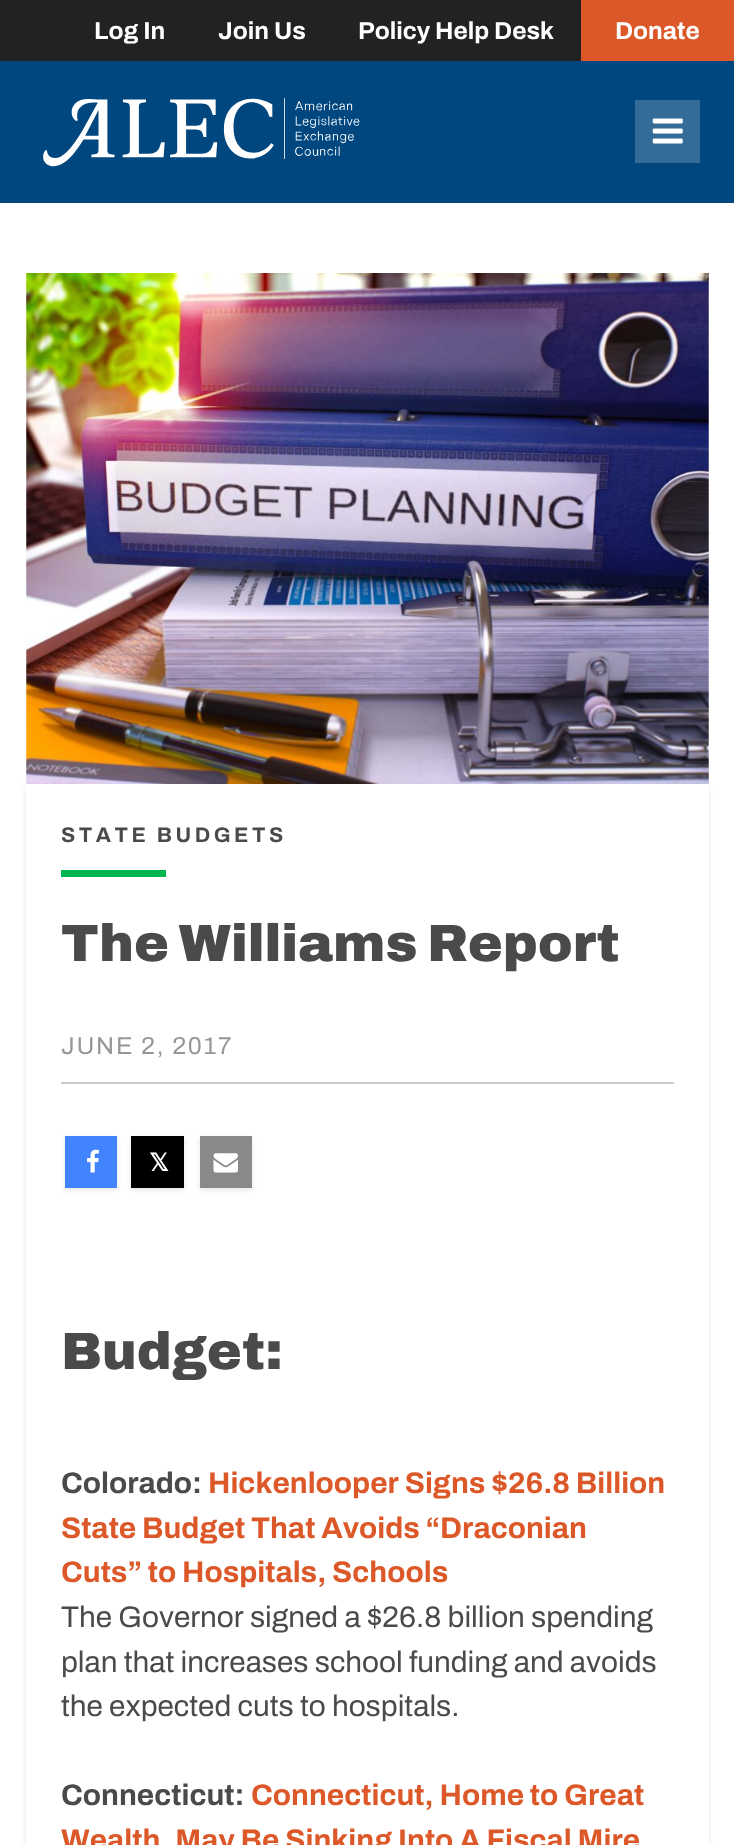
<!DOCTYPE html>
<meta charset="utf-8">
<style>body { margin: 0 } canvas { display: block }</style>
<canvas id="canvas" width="734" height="1845"></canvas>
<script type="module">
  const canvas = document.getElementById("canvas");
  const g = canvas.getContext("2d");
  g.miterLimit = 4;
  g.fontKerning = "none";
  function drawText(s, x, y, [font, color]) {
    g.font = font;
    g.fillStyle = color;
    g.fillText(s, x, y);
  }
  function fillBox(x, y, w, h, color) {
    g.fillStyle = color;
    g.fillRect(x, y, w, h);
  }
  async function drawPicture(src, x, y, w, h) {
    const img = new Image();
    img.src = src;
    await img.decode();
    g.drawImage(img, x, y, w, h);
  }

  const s1 = ["bold 24.5px Archivo", "#FFFFFF"];
  const s2 = ["bold 21px Archivo", "#4A4A4A"];
  const s3 = ["900 52.5px Archivo", "#4A4A4A"];
  const s4 = ["24.5px Archivo", "#979797"];
  const s5 = ["bold 24.5px DejaVu Sans", "#FFFFFF"];
  const s6 = ["bold 29.75px Archivo", "#4A4A4A"];
  const s7 = ["bold 29.75px Archivo", "#DD5828"];
  const s8 = ["29.75px Archivo", "#4A4A4A"];

  fillBox(0, 0, 734, 1845, "#FFFFFF");
  fillBox(0, 0, 581, 61, "#222222");
  drawText("Log In", 94, 39, s1);
  drawText("Join Us", 218, 39, s1);
  drawText("Policy Help Desk", 358, 39, s1);
  fillBox(581, 0, 153, 61, "#DD5828");
  drawText("Donate", 615, 39, s1);
  fillBox(0, 61, 734, 142, "#00477F");
  await drawPicture("pic1.png", 43, 98, 317, 69);
  fillBox(635, 100, 65, 63, "#336C99");
  await drawPicture("pic2.png", 652, 118, 31, 26);
  await drawPicture("pic3.png", 26, 273, 683, 511);
  g.save();
  g.beginPath();
  g.moveTo(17, 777);
  g.lineTo(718, 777);
  g.lineTo(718, 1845);
  g.lineTo(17, 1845);
  g.closePath();
  g.moveTo(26, 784);
  g.lineTo(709, 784);
  g.lineTo(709, 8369);
  g.lineTo(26, 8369);
  g.closePath();
  g.clip("evenodd");
  g.fillStyle = "rgba(0, 0, 0, 0.1)";
  g.filter = "blur(2.5px)";
  g.beginPath();
  g.rect(26, 786, 683, 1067);
  g.fill();
  g.filter = "none";
  g.restore();
  fillBox(26, 789, 683, 1056, "rgba(255, 255, 255, 0.8)");
  g.letterSpacing = "3.5px";
  drawText("STATE BUDGETS", 61, 842, s2);
  fillBox(61, 870, 105, 7, "#00B74F");
  g.letterSpacing = "0px";
  drawText("The Williams Report", 61, 961, s3);
  g.letterSpacing = "1.75px";
  drawText("JUNE 2, 2017", 61, 1054, s4);
  fillBox(61, 1082, 613, 2, "#CCCCCC");
  g.fillStyle = "rgba(0, 0, 0, 0.1)";
  g.filter = "blur(2.5px)";
  g.beginPath();
  g.rect(65, 1138, 52, 52);
  g.fill();
  g.filter = "none";
  fillBox(65, 1136, 52, 52, "#4184FE");
  await drawPicture("pic4.png", 87, 1149, 12, 24);
  g.fillStyle = "rgba(0, 0, 0, 0.1)";
  g.filter = "blur(2.5px)";
  g.beginPath();
  g.rect(131, 1138, 53, 52);
  g.fill();
  g.filter = "none";
  fillBox(131, 1136, 53, 52, "#000000");
  g.letterSpacing = "3.5px";
  drawText("𝕏", 149, 1171, s5);
  g.fillStyle = "rgba(0, 0, 0, 0.1)";
  g.filter = "blur(2.5px)";
  g.beginPath();
  g.rect(200, 1138, 52, 52);
  g.fill();
  g.filter = "none";
  fillBox(200, 1136, 52, 52, "#898989");
  await drawPicture("pic5.png", 213, 1153, 25, 20);
  g.letterSpacing = "0px";
  drawText("Budget:", 61, 1369, s3);
  drawText("Colorado:", 61, 1493, s6);
  drawText("Hickenlooper Signs $26.8 Billion", 208, 1493, s7);
  drawText("State Budget That Avoids “Draconian", 61, 1538, s7);
  drawText("Cuts” to Hospitals, Schools", 61, 1582, s7);
  drawText("The Governor signed a $26.8 billion spending", 61, 1627, s8);
  drawText("plan that increases school funding and avoids", 61, 1672, s8);
  drawText("the expected cuts to hospitals.", 61, 1716, s8);
  drawText("Connecticut:", 61, 1805, s6);
  drawText("Connecticut, Home to Great", 251, 1805, s7);
  drawText("Wealth, May Be Sinking Into A Fiscal Mire", 61, 1850, s7);
</script>
